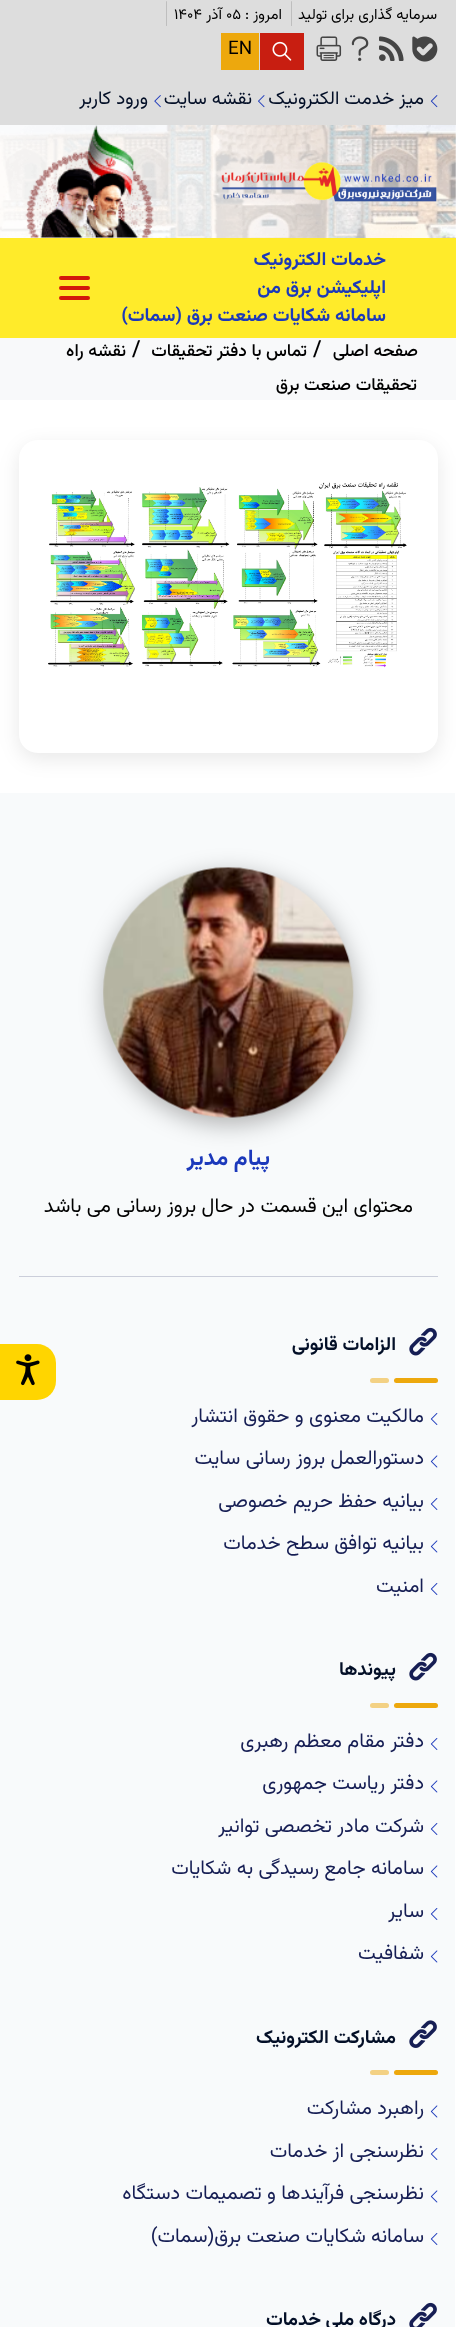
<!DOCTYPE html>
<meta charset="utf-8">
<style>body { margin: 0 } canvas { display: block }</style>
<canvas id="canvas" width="456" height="2327"></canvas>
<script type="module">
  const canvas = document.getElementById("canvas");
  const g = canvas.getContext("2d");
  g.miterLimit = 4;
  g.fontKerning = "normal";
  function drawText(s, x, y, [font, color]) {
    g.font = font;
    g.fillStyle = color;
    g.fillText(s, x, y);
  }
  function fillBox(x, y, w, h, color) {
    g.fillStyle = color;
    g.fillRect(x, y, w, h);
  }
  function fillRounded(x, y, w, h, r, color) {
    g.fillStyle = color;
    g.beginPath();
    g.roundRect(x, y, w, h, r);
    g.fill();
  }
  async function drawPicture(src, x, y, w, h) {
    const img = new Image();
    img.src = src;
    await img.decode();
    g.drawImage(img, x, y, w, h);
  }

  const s1 = ["15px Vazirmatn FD", "#000000"];
  const s2 = ["18.75px Vazirmatn FD", "#000000"];
  const s3 = ["18.75px Vazirmatn FD", "#030F27"];
  const s4 = ["bold 18.75px Vazirmatn FD", "#1C39BB"];
  const s5 = ["500 17.5px Vazirmatn FD", "#000000"];
  const s6 = ["500 22px Vazirmatn FD", "#000000"];
  const s7 = ["bold 22.5px Vazirmatn FD", "#1C39BB"];
  const s8 = ["20.1px Vazirmatn FD", "#000000"];
  const s9 = ["bold 18.75px Vazirmatn FD", "#030F27"];
  const s10 = ["20px Vazirmatn FD", "#161E54"];

  fillBox(0, 0, 456, 2327, "#FFFFFF");
  await drawPicture("pic1.png", 0, 125, 456, 113);
  fillBox(0, 0, 456, 125, "#DDDDDD");
  g.direction = "rtl";
  drawText("سرمایه گذاری برای تولید", 437, 19, s1);
  fillRounded(291, 1, 1, 25, 0.5, "#BEBEBE");
  drawText("امروز :", 282, 19, s1);
  g.direction = "ltr";
  drawText("05", 226, 19, s1);
  g.direction = "rtl";
  drawText("آذر", 222, 19, s1);
  g.direction = "ltr";
  drawText("1404", 174, 19, s1);
  fillRounded(166, 1, 1, 25, 0.5, "#BEBEBE");
  await drawPicture("pic2.png", 412, 36, 26, 26);
  await drawPicture("pic3.png", 379, 36, 25, 25);
  await drawPicture("pic4.png", 351, 36, 18, 25);
  await drawPicture("pic5.png", 316, 36, 26, 25);
  fillBox(260, 33, 44, 37, "#C81E11");
  await drawPicture("pic6.png", 272, 41, 20, 20);
  fillBox(221, 33, 38, 37, "#EDA80D");
  drawText("EN", 228, 54, s2);
  await drawPicture("pic7.png", 430, 95, 8, 13);
  g.direction = "rtl";
  drawText("میز خدمت الکترونیک", 424, 104, s3);
  await drawPicture("pic8.png", 258, 95, 7, 13);
  drawText("نقشه سایت", 252, 104, s3);
  await drawPicture("pic9.png", 154, 95, 7, 13);
  drawText("ورود کاربر", 148, 104, s3);
  await drawPicture("pic10.png", 221, 162, 216, 40);
  fillBox(0, 238, 456, 100, "#FFEB2A");
  fillRounded(59, 276, 31, 4, 2, "#D3170B");
  fillRounded(59, 286, 31, 4, 2, "#D3170B");
  fillRounded(59, 296, 31, 4, 2, "#D3170B");
  await drawPicture("pic11.png", 25, 125, 129, 113);
  drawText("خدمات الکترونیک", 386, 265, s4);
  drawText("اپلیکیشن برق من", 386, 293, s4);
  drawText("سامانه شکایات صنعت برق (سمات)", 386, 321, s4);
  fillBox(0, 338, 456, 62, "#F8F9FA");
  drawText("صفحه اصلی", 418, 356, s5);
  g.direction = "ltr";
  drawText("/", 313, 356, s6);
  g.direction = "rtl";
  drawText("تماس با دفتر تحقیقات", 307, 356, s5);
  g.direction = "ltr";
  drawText("/", 132, 356, s6);
  g.direction = "rtl";
  drawText("نقشه راه", 126, 356, s5);
  drawText("تحقیقات صنعت برق", 417, 390, s5);
  g.save();
  g.beginPath();
  g.moveTo(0, 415);
  g.lineTo(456, 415);
  g.lineTo(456, 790);
  g.lineTo(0, 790);
  g.closePath();
  g.moveTo(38, 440);
  g.lineTo(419, 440);
  g.bezierCurveTo(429.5, 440, 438, 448.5, 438, 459);
  g.lineTo(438, 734);
  g.bezierCurveTo(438, 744.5, 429.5, 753, 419, 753);
  g.lineTo(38, 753);
  g.bezierCurveTo(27.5, 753, 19, 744.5, 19, 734);
  g.lineTo(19, 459);
  g.bezierCurveTo(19, 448.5, 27.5, 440, 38, 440);
  g.closePath();
  g.clip("evenodd");
  g.fillStyle = "rgba(0, 0, 0, 0.09)";
  g.filter = "blur(10px)";
  g.beginPath();
  g.roundRect(19, 446, 419, 313, 19);
  g.fill();
  g.filter = "none";
  g.restore();
  await drawPicture("pic12.png", 48, 482, 359, 186);
  fillBox(0, 793, 455, 1534, "#F8FAFB");
  fillBox(19, 1276, 419, 1, "#CBCEDA");
  g.fillStyle = "rgba(0, 0, 0, 0.3)";
  g.filter = "blur(12.5px)";
  g.beginPath();
  g.roundRect(104, 874, 250, 250, 125);
  g.fill();
  g.filter = "none";
  await drawPicture("pic13.png", 103, 867, 251, 251);
  drawText("پیام مدیر", 270, 1165, s7);
  drawText("محتوای این قسمت در حال بروز رسانی می باشد", 413, 1212, s8);
  await drawPicture("pic14.png", 409, 1327, 28, 29);
  drawText("الزامات قانونی", 396, 1350, s9);
  fillRounded(394, 1378, 44, 5, 2.5, "#EDA80D");
  fillRounded(370, 1378, 19, 5, 2.5, "#F3D184");
  await drawPicture("pic15.png", 430, 1413, 8, 12);
  drawText("مالکیت معنوی و حقوق انتشار", 424, 1422, s10);
  await drawPicture("pic16.png", 430, 1455, 8, 13);
  drawText("دستورالعمل بروز رسانی سایت", 424, 1464, s10);
  await drawPicture("pic15.png", 430, 1498, 8, 12);
  drawText("بیانیه حفظ حریم خصوصی", 424, 1507, s10);
  await drawPicture("pic16.png", 430, 1540, 8, 13);
  drawText("بیانیه توافق سطح خدمات", 424, 1549, s10);
  await drawPicture("pic15.png", 430, 1583, 8, 12);
  drawText("امنیت", 424, 1592, s10);
  await drawPicture("pic14.png", 409, 1652, 28, 29);
  drawText("پیوندها", 396, 1675, s9);
  fillRounded(394, 1703, 44, 5, 2.5, "#EDA80D");
  fillRounded(370, 1703, 19, 5, 2.5, "#F3D184");
  await drawPicture("pic15.png", 430, 1738, 8, 12);
  drawText("دفتر مقام معظم رهبری", 424, 1747, s10);
  await drawPicture("pic16.png", 430, 1780, 8, 13);
  drawText("دفتر ریاست جمهوری", 424, 1789, s10);
  await drawPicture("pic15.png", 430, 1823, 8, 12);
  drawText("شرکت مادر تخصصی توانیر", 424, 1832, s10);
  await drawPicture("pic16.png", 430, 1865, 8, 13);
  drawText("سامانه جامع رسیدگی به شکایات", 424, 1874, s10);
  await drawPicture("pic15.png", 430, 1908, 8, 12);
  drawText("سایر", 424, 1917, s10);
  await drawPicture("pic16.png", 430, 1950, 8, 13);
  drawText("شفافیت", 424, 1959, s10);
  await drawPicture("pic17.png", 409, 2020, 28, 28);
  drawText("مشارکت الکترونیک", 396, 2043, s9);
  fillRounded(394, 2070, 44, 5, 2.5, "#EDA80D");
  fillRounded(370, 2070, 19, 5, 2.5, "#F3D184");
  await drawPicture("pic16.png", 430, 2105, 8, 13);
  drawText("راهبرد مشارکت", 424, 2114, s10);
  await drawPicture("pic15.png", 430, 2148, 8, 12);
  drawText("نظرسنجی از خدمات", 424, 2157, s10);
  await drawPicture("pic16.png", 430, 2190, 8, 13);
  drawText("نظرسنجی فرآیندها و تصمیمات دستگاه", 424, 2199, s10);
  await drawPicture("pic15.png", 430, 2233, 8, 12);
  drawText("سامانه شکایات صنعت برق(سمات)", 424, 2242, s10);
  await drawPicture("pic18.png", 409, 2302, 28, 25);
  drawText("درگاه ملی خدمات", 396, 2325, s9);
  g.fillStyle = "#FFD500";
  g.beginPath();
  g.roundRect(0, 1344, 56, 56, [0, 19, 19, 0]);
  g.fill();
  await drawPicture("pic19.png", 16, 1354, 24, 32);
</script>
